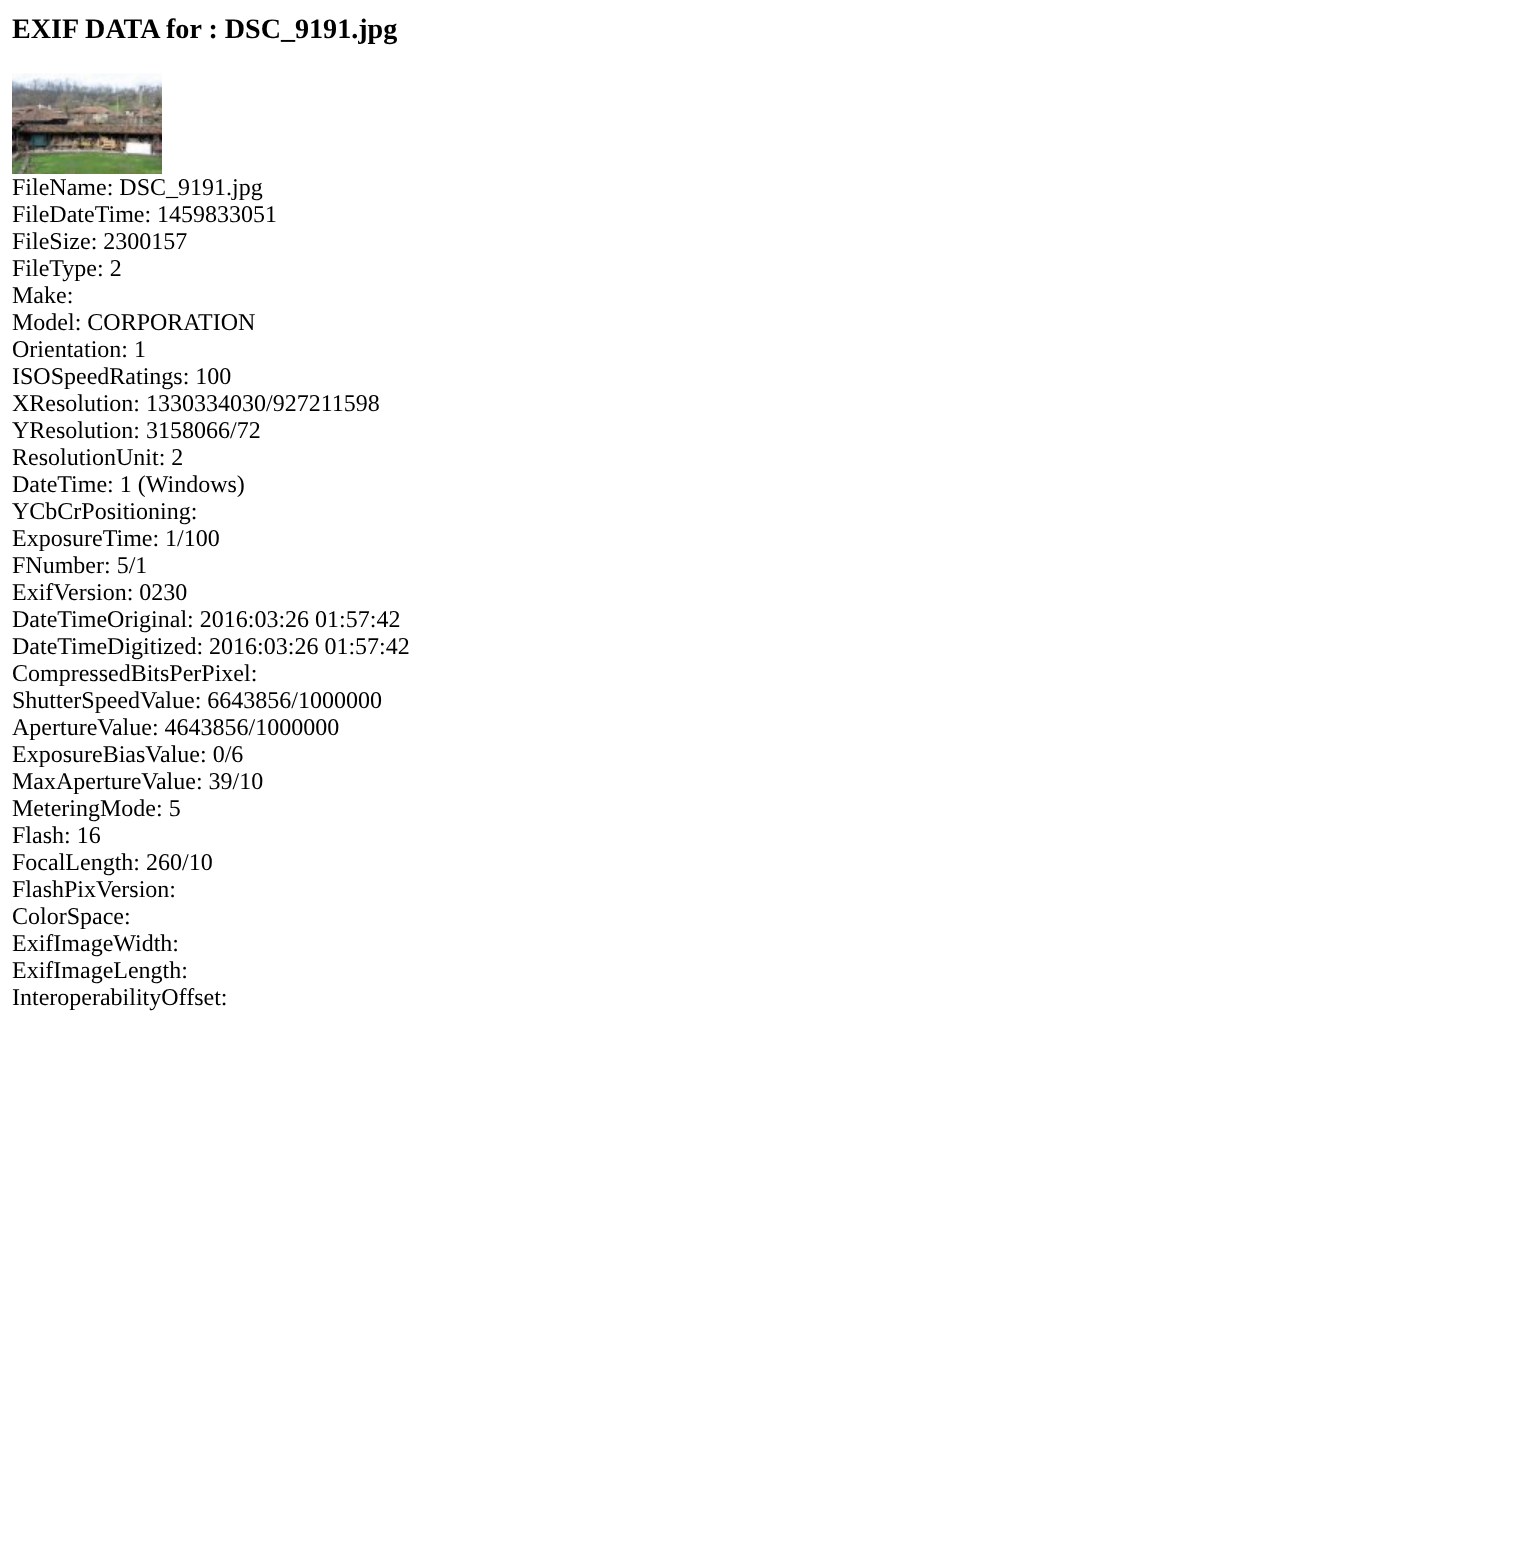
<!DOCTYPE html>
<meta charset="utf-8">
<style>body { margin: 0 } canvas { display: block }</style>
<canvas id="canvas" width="1539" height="1558"></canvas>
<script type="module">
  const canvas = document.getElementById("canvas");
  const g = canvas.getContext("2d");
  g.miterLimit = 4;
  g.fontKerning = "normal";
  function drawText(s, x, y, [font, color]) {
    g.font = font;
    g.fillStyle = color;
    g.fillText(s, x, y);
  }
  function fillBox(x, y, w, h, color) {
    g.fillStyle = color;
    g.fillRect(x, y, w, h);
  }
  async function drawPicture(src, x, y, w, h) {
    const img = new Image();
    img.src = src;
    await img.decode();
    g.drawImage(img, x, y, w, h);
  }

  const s1 = ["bold 28.1px Liberation Serif", "#000000"];
  const s2 = ["24px Liberation Serif", "#000000"];

  fillBox(0, 0, 1539, 1558, "#FFFFFF");
  drawText("EXIF DATA for : DSC_9191.jpg", 12, 38, s1);
  await drawPicture("pic1.png", 12, 73, 150, 101);
  drawText("FileName: DSC_9191.jpg", 12, 195, s2);
  drawText("FileDateTime: 1459833051", 12, 222, s2);
  drawText("FileSize: 2300157", 12, 249, s2);
  drawText("FileType: 2", 12, 276, s2);
  drawText("Make:", 12, 303, s2);
  drawText("Model: CORPORATION", 12, 330, s2);
  drawText("Orientation: 1", 12, 357, s2);
  drawText("ISOSpeedRatings: 100", 12, 384, s2);
  drawText("XResolution: 1330334030/927211598", 12, 411, s2);
  drawText("YResolution: 3158066/72", 12, 438, s2);
  drawText("ResolutionUnit: 2", 12, 465, s2);
  drawText("DateTime: 1 (Windows)", 12, 492, s2);
  drawText("YCbCrPositioning:", 12, 519, s2);
  drawText("ExposureTime: 1/100", 12, 546, s2);
  drawText("FNumber: 5/1", 12, 573, s2);
  drawText("ExifVersion: 0230", 12, 600, s2);
  drawText("DateTimeOriginal: 2016:03:26 01:57:42", 12, 627, s2);
  drawText("DateTimeDigitized: 2016:03:26 01:57:42", 12, 654, s2);
  drawText("CompressedBitsPerPixel:", 12, 681, s2);
  drawText("ShutterSpeedValue: 6643856/1000000", 12, 708, s2);
  drawText("ApertureValue: 4643856/1000000", 12, 735, s2);
  drawText("ExposureBiasValue: 0/6", 12, 762, s2);
  drawText("MaxApertureValue: 39/10", 12, 789, s2);
  drawText("MeteringMode: 5", 12, 816, s2);
  drawText("Flash: 16", 12, 843, s2);
  drawText("FocalLength: 260/10", 12, 870, s2);
  drawText("FlashPixVersion:", 12, 897, s2);
  drawText("ColorSpace:", 12, 924, s2);
  drawText("ExifImageWidth:", 12, 951, s2);
  drawText("ExifImageLength:", 12, 978, s2);
  drawText("InteroperabilityOffset:", 12, 1005, s2);
</script>
